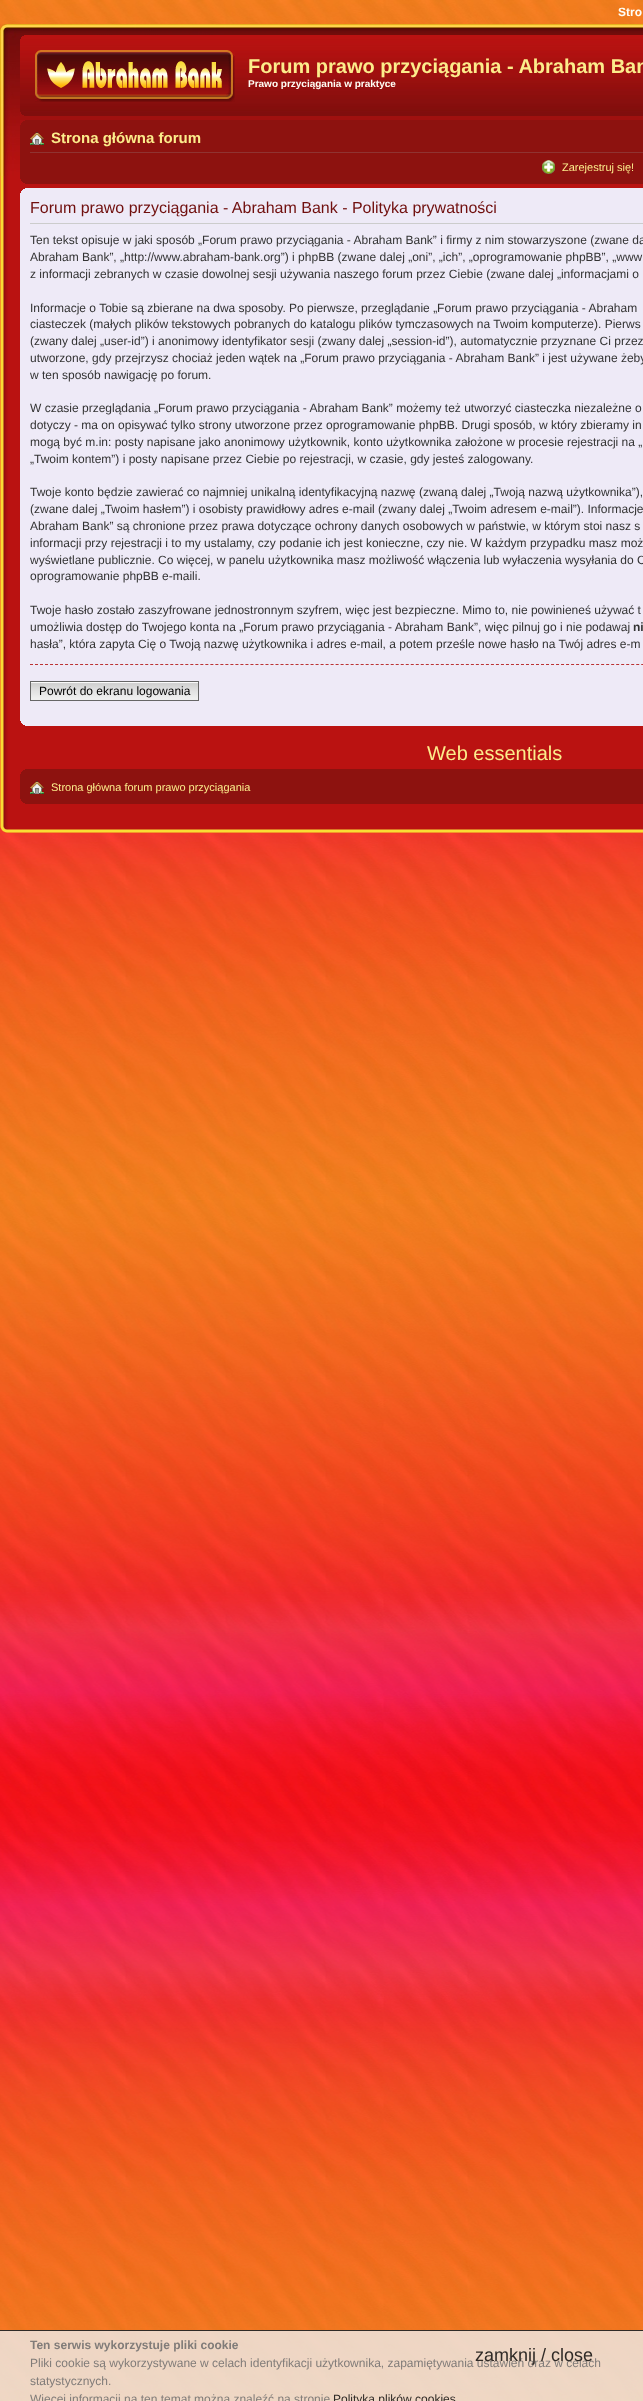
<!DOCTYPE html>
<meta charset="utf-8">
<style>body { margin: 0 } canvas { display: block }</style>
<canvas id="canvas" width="643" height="2401"></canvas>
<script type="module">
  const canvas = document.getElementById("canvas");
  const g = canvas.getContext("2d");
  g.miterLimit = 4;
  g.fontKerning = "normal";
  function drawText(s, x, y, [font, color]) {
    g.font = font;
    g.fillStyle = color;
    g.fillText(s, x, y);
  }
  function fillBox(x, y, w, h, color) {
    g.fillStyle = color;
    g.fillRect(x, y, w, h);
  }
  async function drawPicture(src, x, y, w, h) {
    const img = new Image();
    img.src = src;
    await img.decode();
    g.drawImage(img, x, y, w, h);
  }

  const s1 = ["bold 12px Liberation Sans", "#FFFEF5"];
  const s2 = ["bold 20px Liberation Sans", "#FCEC8B"];
  const s3 = ["bold 10px Liberation Sans", "#FFFEF5"];
  const s4 = ["bold 15px Liberation Sans", "#FCEC8B"];
  const s5 = ["11px Liberation Sans", "#FCEC8B"];
  const s6 = ["16px Liberation Sans", "#700F0E"];
  const s7 = ["12px Liberation Sans", "#333333"];
  const s8 = ["bold 12px Liberation Sans", "#333333"];
  const s9 = ["12px Liberation Sans", "#000000"];
  const s10 = ["20px Liberation Sans", "#FCEC8B"];
  const s11 = ["bold 12px Liberation Sans", "#817C79"];
  const s12 = ["12px Liberation Sans", "#817C79"];
  const s13 = ["12px Liberation Sans", "#302B27"];
  const s14 = ["18px Liberation Sans", "#302B27"];

  fillBox(0, 0, 643, 2401, "#FFFFFF");
  await drawPicture("pic1.png", 0, 0, 643, 2401);
  drawText("Stro", 618, 16, s1);
  await drawPicture("pic2.png", 0, 176, 643, 649);
  await drawPicture("pic3.png", 0, 24, 643, 152);
  await drawPicture("pic4.png", 20, 35, 623, 81);
  await drawPicture("pic5.png", 20, 35, 4, 4);
  await drawPicture("pic6.png", 35, 50, 200, 52);
  drawText("Forum prawo przyciągania - Abraham Ban", 248, 73, s2);
  drawText("Prawo przyciągania w praktyce", 248, 87, s3);
  await drawPicture("pic7.png", 20, 112, 4, 4);
  fillBox(20, 120, 623, 64, "#8D120F");
  await drawPicture("pic8.png", 20, 120, 5, 5);
  fillBox(30, 152, 613, 1, "#903331");
  await drawPicture("pic9.png", 30, 132, 14, 13);
  drawText("Strona główna forum", 51, 143, s4);
  await drawPicture("pic10.png", 542, 160, 13, 14);
  drawText("Zarejestruj się!", 562, 171, s5);
  await drawPicture("pic11.png", 20, 179, 5, 5);
  fillBox(20, 188, 623, 538, "#EEEAF7");
  await drawPicture("pic12.png", 20, 188, 5, 5);
  fillBox(30, 223, 613, 1, "#CCCCCC");
  drawText("Forum prawo przyciągania - Abraham Bank - Polityka prywatności", 30, 213, s6);
  drawText("Ten tekst opisuje w jaki sposób „Forum prawo przyciągania - Abraham Bank” i firmy z nim stowarzyszone (zwane da", 30, 244, s7);
  drawText("Abraham Bank”, „http://www.abraham-bank.org”) i phpBB (zwane dalej „oni”, „ich”, „oprogramowanie phpBB”, „www", 30, 261, s7);
  drawText("z informacji zebranych w czasie dowolnej sesji używania naszego forum przez Ciebie (zwane dalej „informacjami o", 30, 278, s7);
  drawText("Informacje o Tobie są zbierane na dwa sposoby. Po pierwsze, przeglądanie „Forum prawo przyciągania - Abraham", 30, 312, s7);
  drawText("ciasteczek (małych plików tekstowych pobranych do katalogu plików tymczasowych na Twoim komputerze). Pierws", 30, 328, s7);
  drawText("(zwany dalej „user-id”) i anonimowy identyfikator sesji (zwany dalej „session-id”), automatycznie przyznane Ci przez", 30, 345, s7);
  drawText("utworzone, gdy przejrzysz chociaż jeden wątek na „Forum prawo przyciągania - Abraham Bank” i jest używane żeby", 30, 362, s7);
  drawText("w ten sposób nawigację po forum.", 30, 379, s7);
  drawText("W czasie przeglądania „Forum prawo przyciągania - Abraham Bank” możemy też utworzyć ciasteczka niezależne o", 30, 412, s7);
  drawText("dotyczy - ma on opisywać tylko strony utworzone przez oprogramowanie phpBB. Drugi sposób, w który zbieramy in", 30, 429, s7);
  drawText("mogą być m.in: posty napisane jako anonimowy użytkownik, konto użytkownika założone w procesie rejestracji na „", 30, 446, s7);
  drawText("„Twoim kontem”) i posty napisane przez Ciebie po rejestracji, w czasie, gdy jesteś zalogowany.", 30, 463, s7);
  drawText("Twoje konto będzie zawierać co najmniej unikalną identyfikacyjną nazwę (zwaną dalej „Twoją nazwą użytkownika”),", 30, 496, s7);
  drawText("(zwane dalej „Twoim hasłem”) i osobisty prawidłowy adres e-mail (zwany dalej „Twoim adresem e-mail”). Informacje", 30, 513, s7);
  drawText("Abraham Bank” są chronione przez prawa dotyczące ochrony danych osobowych w państwie, w którym stoi nasz s", 30, 530, s7);
  drawText("informacji przy rejestracji i to my ustalamy, czy podanie ich jest konieczne, czy nie. W każdym przypadku masz moż", 30, 547, s7);
  drawText("wyświetlane publicznie. Co więcej, w panelu użytkownika masz możliwość włączenia lub wyłaczenia wysyłania do C", 30, 564, s7);
  drawText("oprogramowanie phpBB e-maili.", 30, 580, s7);
  drawText("Twoje hasło zostało zaszyfrowane jednostronnym szyfrem, więc jest bezpieczne. Mimo to, nie powinieneś używać t", 30, 614, s7);
  drawText("umożliwia dostęp do Twojego konta na „Forum prawo przyciągania - Abraham Bank”, więc pilnuj go i nie podawaj", 30, 631, s7);
  drawText("ni", 633, 631, s8);
  drawText("hasła”, która zapyta Cię o Twoją nazwę użytkownika i adres e-mail, a potem prześle nowe hasło na Twój adres e-m", 30, 648, s7);
  g.beginPath();
  g.moveTo(30, 664.5);
  g.lineTo(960, 664.5);
  g.strokeStyle = "#BB3333";
  g.setLineDash([3, 2.01]);
  g.stroke();
  await drawPicture("pic13.png", 31, 683, 167, 17);
  fillBox(31, 682, 167, 1, "#FAFAFA");
  g.strokeStyle = "#666666";
  g.setLineDash([]);
  g.strokeRect(30.5, 681.5, 168, 19);
  drawText("Powrót do ekranu logowania", 39, 695, s9);
  await drawPicture("pic14.png", 20, 721, 5, 5);
  drawText("Web essentials", 427, 760, s10);
  fillBox(20, 769, 623, 35, "#8D120F");
  await drawPicture("pic15.png", 20, 769, 5, 5);
  await drawPicture("pic9.png", 30, 781, 14, 13);
  drawText("Strona główna forum prawo przyciągania", 51, 791, s5);
  await drawPicture("pic11.png", 20, 799, 5, 5);
  await drawPicture("pic16.png", 0, 825, 643, 8);
  fillBox(0, 2331, 643, 70, "rgba(238, 238, 238, 0.8)");
  fillBox(0, 2330, 643, 1, "#302B27");
  drawText("Ten serwis wykorzystuje pliki cookie", 30, 2349, s11);
  drawText("Pliki cookie są wykorzystywane w celach identyfikacji użytkownika, zapamiętywania ustawień oraz w celach", 30, 2367, s12);
  drawText("statystycznych.", 30, 2385, s12);
  drawText("Więcej informacji na ten temat można znaleźć na stronie", 30, 2403, s12);
  drawText("Polityka plików cookies", 333, 2403, s13);
  drawText("zamknij / close", 475, 2361, s14);
</script>
